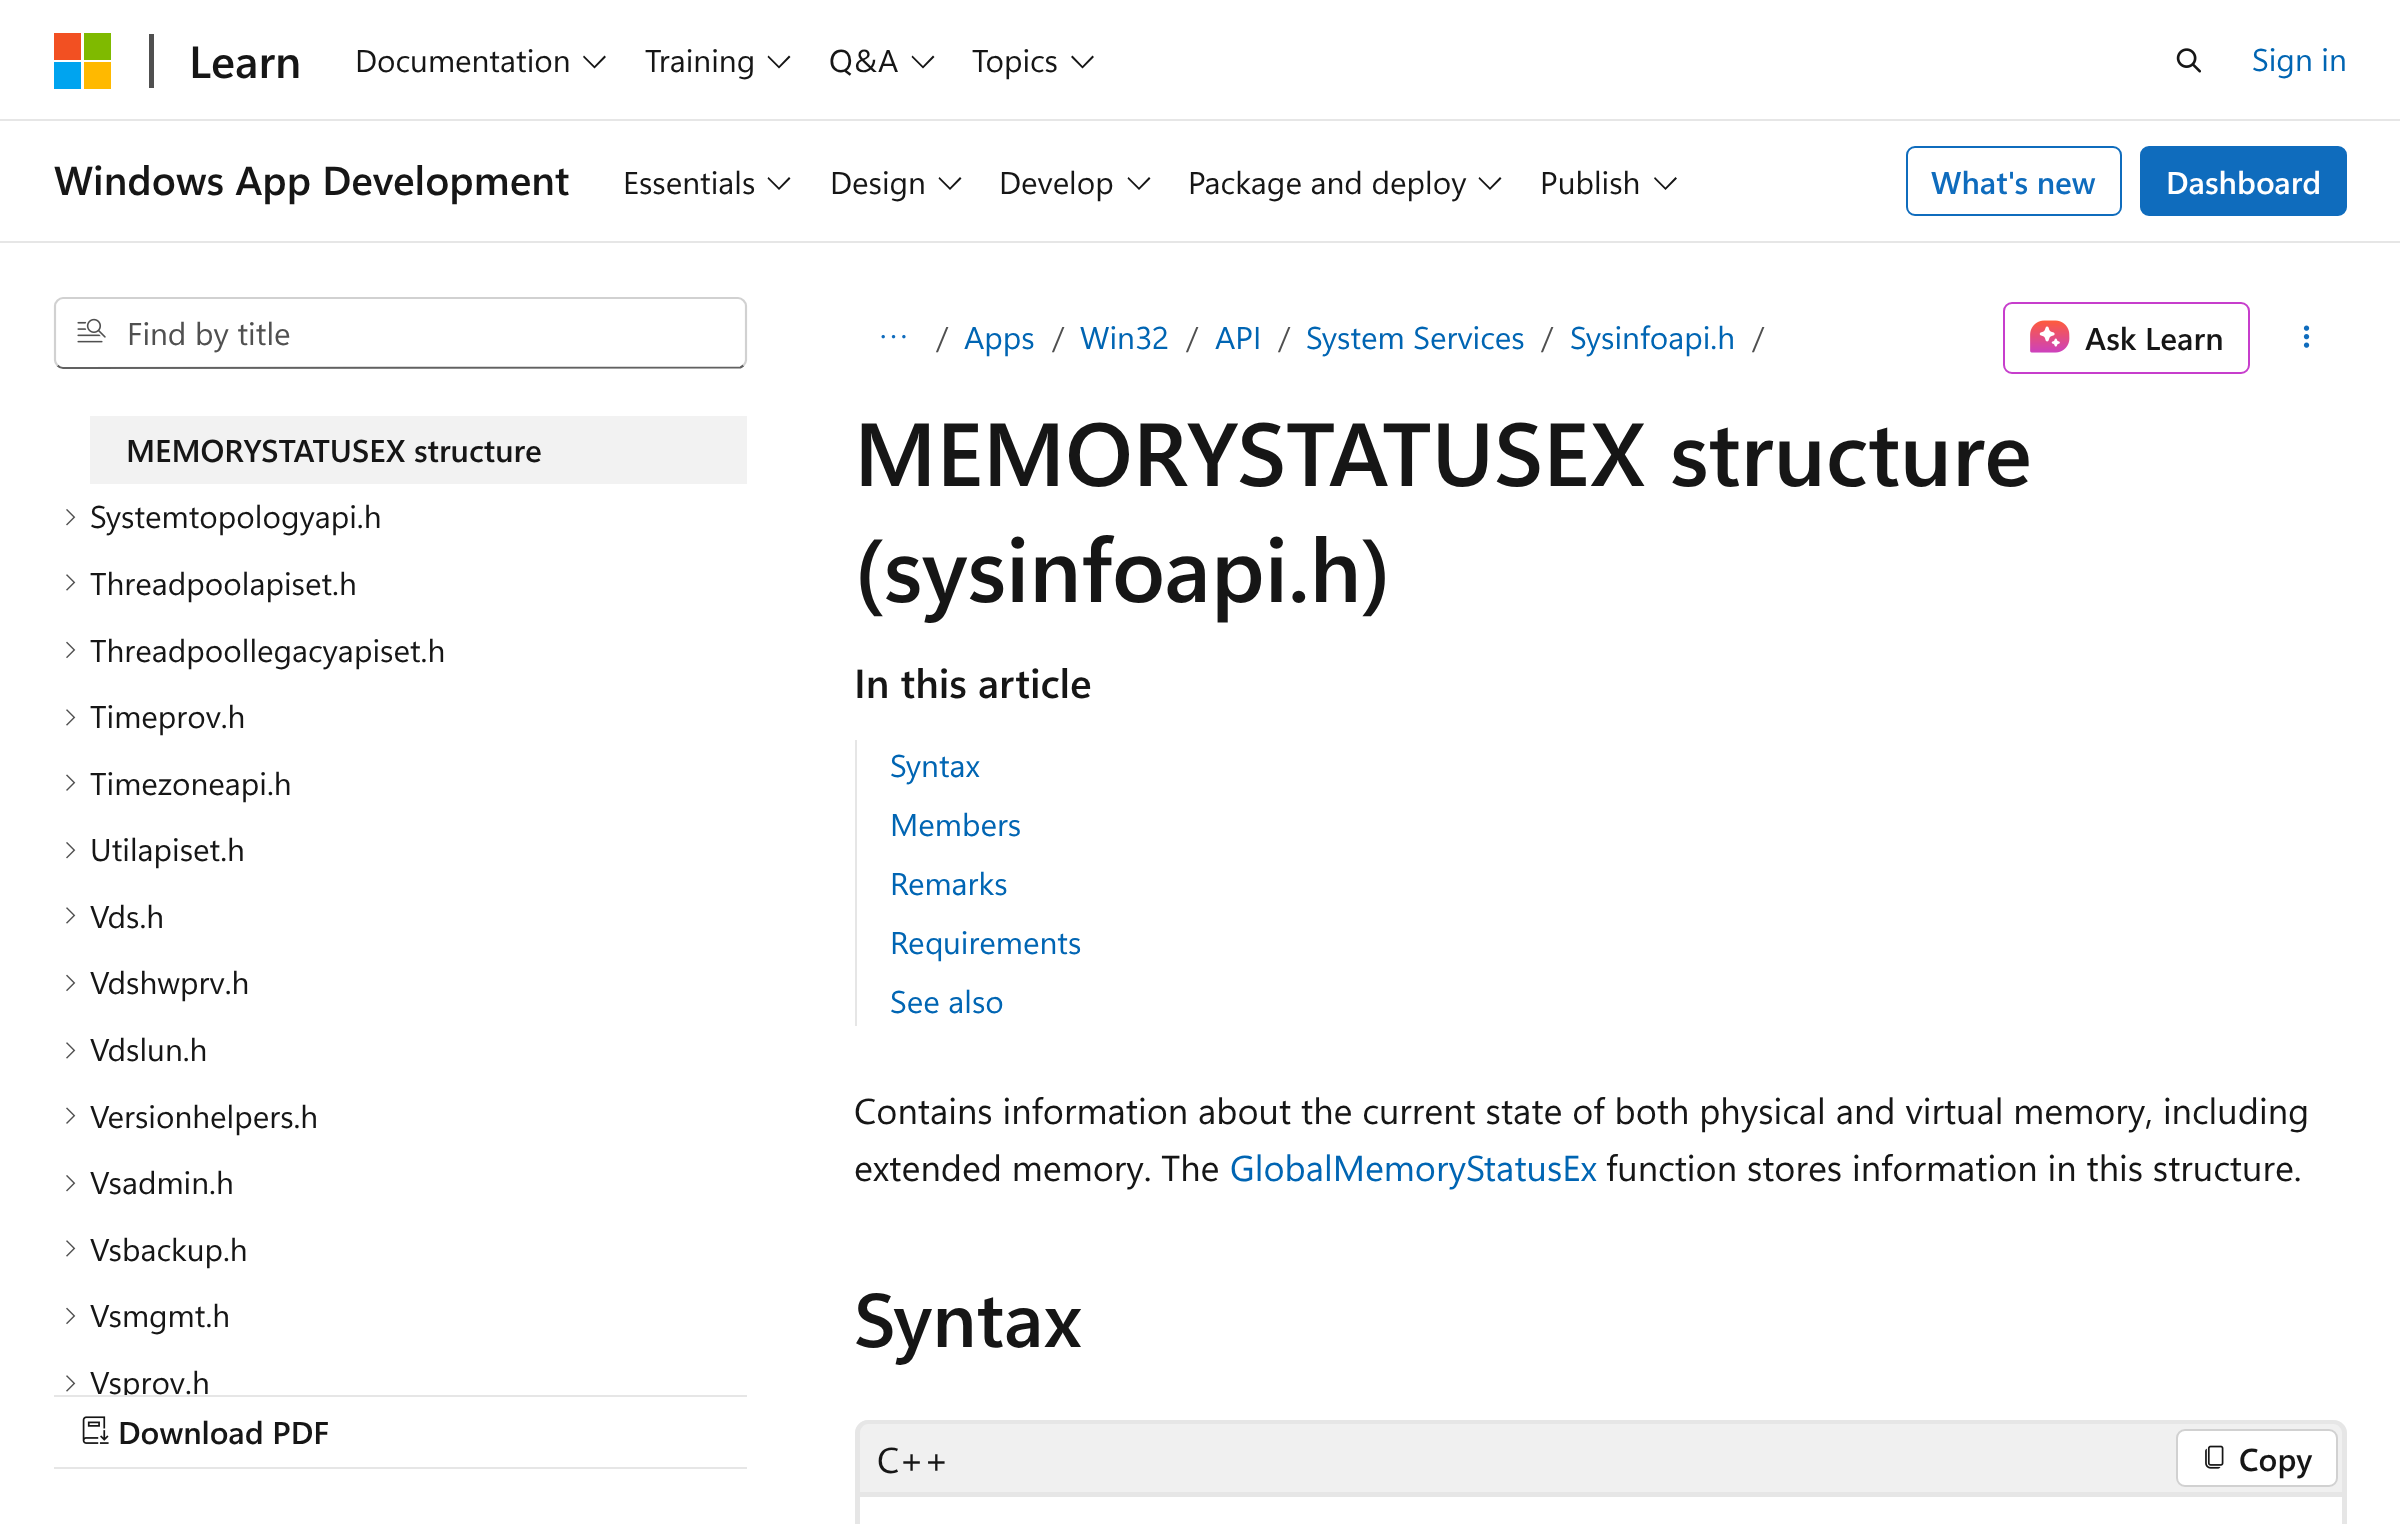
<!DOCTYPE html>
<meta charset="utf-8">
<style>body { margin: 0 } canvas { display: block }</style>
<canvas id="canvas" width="2400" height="1524"></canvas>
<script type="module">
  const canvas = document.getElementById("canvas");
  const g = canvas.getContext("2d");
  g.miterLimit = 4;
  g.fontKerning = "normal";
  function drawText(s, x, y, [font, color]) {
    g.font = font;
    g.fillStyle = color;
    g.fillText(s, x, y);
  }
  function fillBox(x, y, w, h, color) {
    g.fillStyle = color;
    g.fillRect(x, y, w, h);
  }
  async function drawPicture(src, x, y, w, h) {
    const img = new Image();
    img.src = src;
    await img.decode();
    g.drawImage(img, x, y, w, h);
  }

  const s1 = ["600 45px Segoe UI", "#161616"];
  const s2 = ["31.5px Segoe UI", "#161616"];
  const s3 = ["31.5px Segoe UI", "#0065B3"];
  const s4 = ["600 40.5px Segoe UI", "#161616"];
  const s5 = ["600 31.5px Segoe UI", "#0F6CBD"];
  const s6 = ["600 31.5px Segoe UI", "#FFFFFF"];
  const s7 = ["31.5px Segoe UI", "#505050"];
  const s8 = ["600 31.5px Segoe UI", "#161616"];
  const s9 = ["600 89.25px Segoe UI", "#161616"];
  const s10 = ["36px Segoe UI", "#161616"];
  const s11 = ["36px Segoe UI", "#0065B3"];
  const s12 = ["600 76px Segoe UI", "#161616"];

  fillBox(0, 0, 2400, 1524, "#FFFFFF");
  fillBox(0, 119, 2400, 2, "#E6E6E6");
  fillBox(54, 33, 27, 27, "#F25022");
  fillBox(84, 33, 27, 27, "#7FBA00");
  fillBox(54, 62, 27, 27, "#00A4EF");
  fillBox(84, 62, 27, 27, "#FFB900");
  fillBox(149, 34, 5, 54, "#505050");
  drawText("Learn", 189, 78, s1);
  drawText("Documentation", 355, 72, s2);
  g.beginPath();
  g.moveTo(594.5, 68.5);
  g.lineTo(583, 57);
  g.lineTo(584, 55.5);
  g.lineTo(594.5, 66);
  g.lineTo(604.5, 55.5);
  g.lineTo(606, 57);
  g.closePath();
  g.fill();
  drawText("Training", 645, 72, s2);
  g.beginPath();
  g.moveTo(779, 68.5);
  g.lineTo(767.5, 57);
  g.lineTo(768.5, 55.5);
  g.lineTo(779, 66);
  g.lineTo(789, 55.5);
  g.lineTo(790.5, 57);
  g.closePath();
  g.fill();
  drawText("Q&A", 829, 72, s2);
  g.beginPath();
  g.moveTo(923, 68.5);
  g.lineTo(911.5, 57);
  g.lineTo(912.5, 55.5);
  g.lineTo(923, 66);
  g.lineTo(933, 55.5);
  g.lineTo(934.5, 57);
  g.closePath();
  g.fill();
  drawText("Topics", 972, 72, s2);
  g.beginPath();
  g.moveTo(1082.5, 68.5);
  g.lineTo(1071, 57);
  g.lineTo(1072.5, 55.5);
  g.lineTo(1082.5, 66);
  g.lineTo(1092.5, 55.5);
  g.lineTo(1094, 57);
  g.closePath();
  g.fill();
  await drawPicture("pic1.png", 2176, 48, 25, 25);
  drawText("Sign in", 2252, 71, s3);
  fillBox(0, 241, 2400, 2, "#E6E6E6");
  drawText("Windows App Development", 54, 195, s4);
  drawText("Essentials", 623, 194, s2);
  g.beginPath();
  g.moveTo(779, 190);
  g.lineTo(767.5, 178.5);
  g.lineTo(768.5, 177);
  g.lineTo(779, 187.5);
  g.lineTo(789, 177);
  g.lineTo(790.5, 178.5);
  g.closePath();
  g.fill();
  drawText("Design", 830, 194, s2);
  g.beginPath();
  g.moveTo(950, 190);
  g.lineTo(938.5, 178.5);
  g.lineTo(939.5, 177);
  g.lineTo(950, 187.5);
  g.lineTo(960, 177);
  g.lineTo(961.5, 178.5);
  g.closePath();
  g.fill();
  drawText("Develop", 999, 194, s2);
  g.beginPath();
  g.moveTo(1139, 190);
  g.lineTo(1127.5, 178.5);
  g.lineTo(1128.5, 177);
  g.lineTo(1139, 187.5);
  g.lineTo(1149, 177);
  g.lineTo(1150.5, 178.5);
  g.closePath();
  g.fill();
  drawText("Package and deploy", 1188, 194, s2);
  g.beginPath();
  g.moveTo(1490, 190);
  g.lineTo(1478.5, 178.5);
  g.lineTo(1479.5, 177);
  g.lineTo(1490, 187.5);
  g.lineTo(1500, 177);
  g.lineTo(1501.5, 178.5);
  g.closePath();
  g.fill();
  drawText("Publish", 1540, 194, s2);
  g.beginPath();
  g.moveTo(1665.5, 190);
  g.lineTo(1654, 178.5);
  g.lineTo(1655, 177);
  g.lineTo(1665.5, 187.5);
  g.lineTo(1675.5, 177);
  g.lineTo(1677, 178.5);
  g.closePath();
  g.fill();
  g.beginPath();
  g.roundRect(1907, 147, 214, 68, 8);
  g.strokeStyle = "#0F6CBD";
  g.lineWidth = 2;
  g.stroke();
  drawText("What's new", 1931, 194, s5);
  g.beginPath();
  g.roundRect(2141, 147, 205, 68, 8);
  g.fill();
  g.stroke();
  drawText("Dashboard", 2166, 194, s6);
  g.beginPath();
  g.moveTo(743.5, 365.5);
  g.lineTo(740.5, 367.5);
  g.lineTo(63, 368);
  g.bezierCurveTo(61, 368, 59, 367, 57.5, 365.5);
  g.strokeStyle = "#616161";
  g.lineWidth = 2.2;
  g.stroke();
  g.beginPath();
  g.moveTo(57.5, 365.5);
  g.bezierCurveTo(56, 364, 55, 362, 55, 360);
  g.lineTo(55, 306);
  g.bezierCurveTo(55, 304, 56, 302, 57.5, 300.5);
  g.bezierCurveTo(59, 299, 61, 298, 63, 298);
  g.lineTo(738, 298);
  g.bezierCurveTo(740, 298, 742, 299, 743.5, 300.5);
  g.bezierCurveTo(745, 302, 746, 304, 746, 306);
  g.lineTo(746, 360);
  g.bezierCurveTo(746, 362, 745, 364, 743.5, 365.5);
  g.strokeStyle = "#D1D1D1";
  g.stroke();
  await drawPicture("pic2.png", 77, 318, 29, 25);
  drawText("Find by title", 127, 345, s7);
  fillBox(90, 416, 657, 68, "#F2F2F2");
  drawText("MEMORYSTATUSEX structure", 126, 462, s8);
  await drawPicture("pic3.png", 66, 509, 10, 17);
  drawText("Systemtopologyapi.h", 90, 528, s2);
  await drawPicture("pic4.png", 66, 574, 10, 17);
  drawText("Threadpoolapiset.h", 90, 595, s2);
  await drawPicture("pic5.png", 66, 641, 10, 18);
  drawText("Threadpoollegacyapiset.h", 90, 662, s2);
  await drawPicture("pic4.png", 66, 709, 10, 17);
  drawText("Timeprov.h", 90, 728, s2);
  await drawPicture("pic6.png", 66, 774, 10, 17);
  drawText("Timezoneapi.h", 90, 795, s2);
  await drawPicture("pic3.png", 66, 842, 10, 17);
  drawText("Utilapiset.h", 90, 861, s2);
  await drawPicture("pic4.png", 66, 907, 10, 17);
  drawText("Vds.h", 90, 928, s2);
  await drawPicture("pic5.png", 66, 974, 10, 18);
  drawText("Vdshwprv.h", 90, 994, s2);
  await drawPicture("pic4.png", 66, 1042, 10, 17);
  drawText("Vdslun.h", 90, 1061, s2);
  await drawPicture("pic6.png", 66, 1107, 10, 17);
  drawText("Versionhelpers.h", 90, 1128, s2);
  await drawPicture("pic3.png", 66, 1175, 10, 17);
  drawText("Vsadmin.h", 90, 1194, s2);
  await drawPicture("pic4.png", 66, 1240, 10, 17);
  drawText("Vsbackup.h", 90, 1261, s2);
  await drawPicture("pic5.png", 66, 1307, 10, 18);
  drawText("Vsmgmt.h", 90, 1327, s2);
  await drawPicture("pic4.png", 66, 1375, 10, 17);
  g.save();
  g.beginPath();
  g.rect(54, 387, 693, 1008);
  g.clip();
  drawText("Vsprov.", 90, 1394, s2);
  g.restore();
  drawText("h", 192, 1394, s2);
  fillBox(54, 1395, 693, 2, "#E6E6E6");
  fillBox(54, 1467, 693, 2, "#E6E6E6");
  await drawPicture("pic7.png", 82, 1416, 27, 28);
  drawText("Download PDF", 118, 1444, s8);
  await drawPicture("pic8.png", 881, 334, 25, 5);
  drawText("/", 936, 349, s7);
  drawText("Apps", 964, 349, s3);
  drawText("/", 1052, 349, s7);
  drawText("Win32", 1080, 349, s3);
  drawText("/", 1186, 349, s7);
  drawText("API", 1215, 349, s3);
  drawText("/", 1278, 349, s7);
  drawText("System Services", 1306, 349, s3);
  drawText("/", 1541, 349, s7);
  drawText("Sysinfoapi.h", 1570, 349, s3);
  drawText("/", 1752, 349, s7);
  g.beginPath();
  g.roundRect(2004, 303, 245, 70, 8);
  g.strokeStyle = "#C73ECC";
  g.lineWidth = 2;
  g.stroke();
  await drawPicture("pic9.png", 2030, 320, 40, 33);
  drawText("Ask Learn", 2085, 350, s8);
  await drawPicture("pic10.png", 2303, 325, 7, 23);
  drawText("MEMORYSTATUSEX structure", 854, 486, s9);
  drawText("(sysinfoapi.h)", 854, 602, s9);
  drawText("In this article", 854, 698, s4);
  fillBox(855, 740, 2, 286, "#E6E6E6");
  drawText("Syntax", 890, 777, s3);
  drawText("Members", 890, 836, s3);
  drawText("Remarks", 890, 895, s3);
  drawText("Requirements", 890, 954, s3);
  drawText("See also", 890, 1013, s3);
  drawText("Contains information about the current state of both physical and virtual memory, including", 854, 1124, s10);
  drawText("extended memory. The", 854, 1181, s10);
  drawText("GlobalMemoryStatusEx", 1230, 1181, s11);
  drawText("function stores information in this structure.", 1606, 1181, s10);
  drawText("Syntax", 854, 1347, s12);
  g.fillStyle = "#F0F0F0";
  g.beginPath();
  g.roundRect(855, 1420, 1492, 72, [14, 14, 0, 0]);
  g.fill();
  g.fillStyle = "#E6E6E6";
  g.beginPath();
  g.moveTo(868, 1420);
  g.lineTo(2333, 1420);
  g.bezierCurveTo(2341, 1420, 2347, 1426, 2347, 1433);
  g.lineTo(2347, 1492);
  g.lineTo(855, 1492);
  g.lineTo(855, 1433);
  g.bezierCurveTo(855, 1426, 861, 1420, 868, 1420);
  g.closePath();
  g.moveTo(868, 1424);
  g.lineTo(2333, 1424);
  g.bezierCurveTo(2338, 1424, 2342, 1428, 2342, 1433);
  g.lineTo(2342, 1492);
  g.lineTo(860, 1492);
  g.lineTo(860, 1433);
  g.bezierCurveTo(860, 1428, 864, 1424, 868, 1424);
  g.closePath();
  g.fill("evenodd");
  drawText("C++", 877, 1473, s10);
  g.fillStyle = "#FFFFFF";
  g.beginPath();
  g.roundRect(2177, 1430, 160, 56, 8);
  g.fill();
  g.strokeStyle = "#D1D1D1";
  g.stroke();
  await drawPicture("pic11.png", 2205, 1445, 19, 24);
  drawText("Copy", 2239, 1471, s8);
  g.strokeStyle = "#E6E6E6";
  g.lineWidth = 5;
  g.strokeRect(857.5, 1494.5, 1487, 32);
</script>
